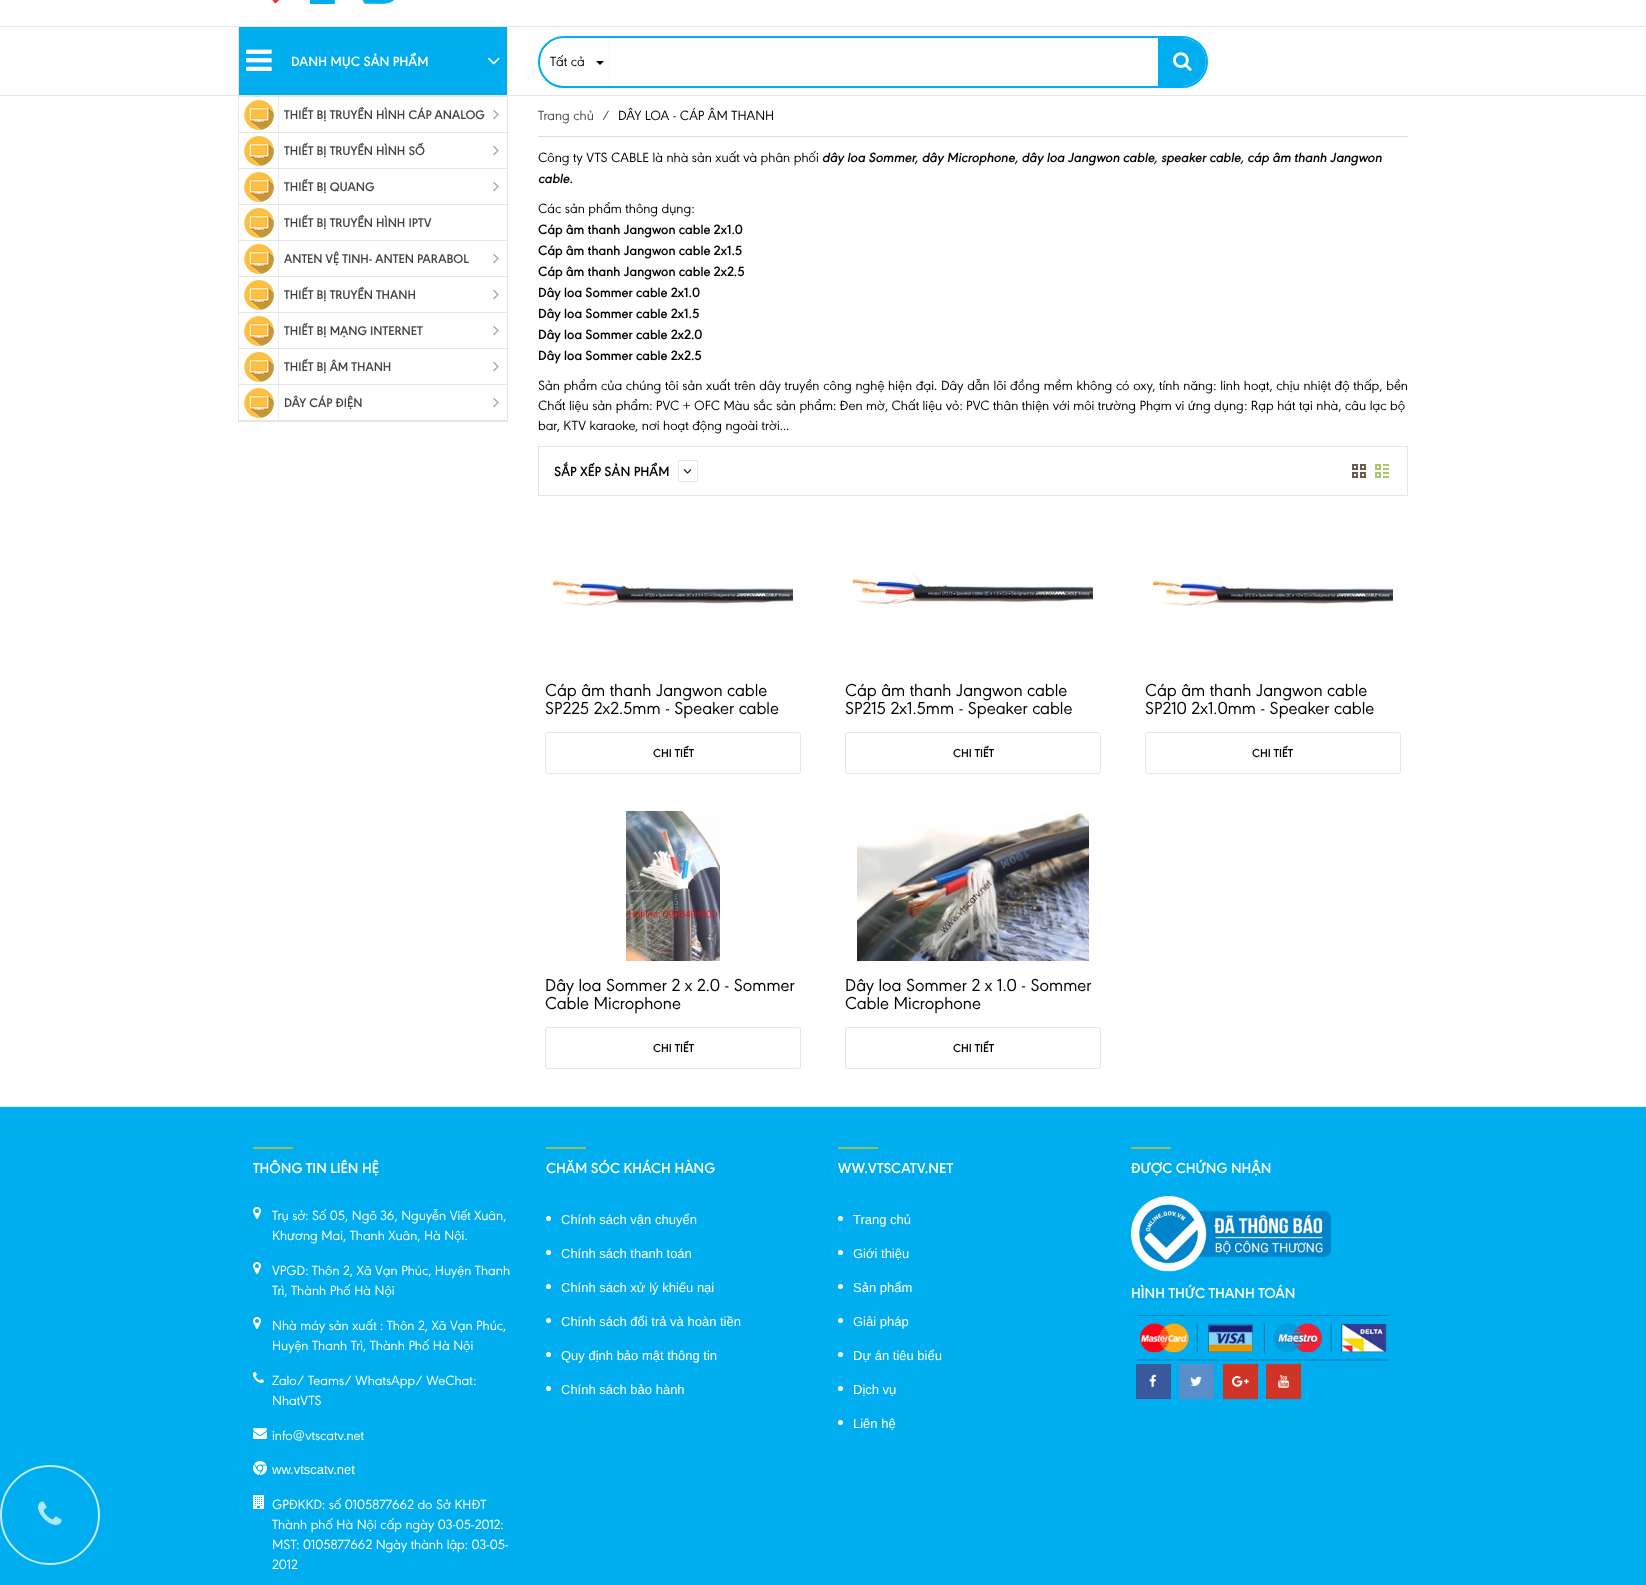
<!DOCTYPE html>
<meta charset="utf-8">
<style>body { margin: 0 } canvas { display: block }</style>
<canvas id="canvas" width="1646" height="1585"></canvas>
<script type="module">
  const canvas = document.getElementById("canvas");
  const g = canvas.getContext("2d");
  g.miterLimit = 4;
  g.fontKerning = "normal";
  function drawText(s, x, y, [font, color]) {
    g.font = font;
    g.fillStyle = color;
    g.fillText(s, x, y);
  }
  function fillBox(x, y, w, h, color) {
    g.fillStyle = color;
    g.fillRect(x, y, w, h);
  }
  async function drawPicture(src, x, y, w, h) {
    const img = new Image();
    img.src = src;
    await img.decode();
    g.drawImage(img, x, y, w, h);
  }

  const s1 = ["600 14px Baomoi", "#FFFFFF"];
  const s2 = ["14px Baomoi", "#000000"];
  const s3 = ["600 13px Baomoi", "#444444"];
  const s4 = ["14px Baomoi", "#4D4D4D"];
  const s5 = ["italic 600 14px Baomoi", "#000000"];
  const s6 = ["600 14px Baomoi", "#000000"];
  const s7 = ["18px Baomoi", "#000000"];
  const s8 = ["600 12px Baomoi", "#000000"];
  const s9 = ["600 15px Baomoi", "#FFFFFF"];
  const s10 = ["14px Baomoi", "#FFFFFF"];
  const s11 = ["13px Liberation Sans", "#FFFFFF"];

  fillBox(0, 0, 1646, 1585, "#FFFFFF");
  await drawPicture("pic1.png", 272, 0, 122, 4);
  fillBox(0, 26, 1646, 1, "#E8E6E2");
  fillBox(0, 95, 1646, 1, "#E8E6E2");
  fillBox(239, 27, 268, 68, "#00AEEF");
  fillBox(507, 27, 1, 68, "#E8E6E2");
  fillBox(238, 27, 1, 68, "#E8E6E2");
  await drawPicture("pic2.png", 246, 49, 26, 22);
  drawText("DANH MỤC SẢN PHẨM", 291, 66, s1);
  await drawPicture("pic3.png", 487, 57, 13, 8);
  g.beginPath();
  g.roundRect(539, 37, 668, 50, 25);
  g.strokeStyle = "#00AEEF";
  g.lineWidth = 2;
  g.stroke();
  fillBox(609, 38, 1, 48, "#F6F6F6");
  drawText("Tất cả", 550, 66, s2);
  g.beginPath();
  g.moveTo(596, 61);
  g.lineTo(604, 61);
  g.lineTo(600, 65);
  g.closePath();
  g.fill();
  g.fillStyle = "#00AEEF";
  g.beginPath();
  g.roundRect(1158, 38, 48, 48, [0, 24, 24, 0]);
  g.fill();
  await drawPicture("pic4.png", 1173, 52, 19, 19);
  g.strokeStyle = "#E8E6E2";
  g.lineWidth = 1;
  g.strokeRect(238.5, 96.5, 269, 325);
  fillBox(239, 132, 268, 1, "#E8E6E2");
  await drawPicture("pic5.png", 244, 100, 30, 30);
  fillBox(278, 97, 1, 35, "#EDEBE8");
  drawText("THIẾT BỊ TRUYỀN HÌNH CÁP ANALOG", 284, 119, s3);
  await drawPicture("pic6.png", 493, 109, 6, 11);
  fillBox(239, 168, 268, 1, "#E8E6E2");
  await drawPicture("pic5.png", 244, 136, 30, 30);
  fillBox(278, 133, 1, 35, "#EDEBE8");
  drawText("THIẾT BỊ TRUYỀN HÌNH SỐ", 284, 155, s3);
  await drawPicture("pic6.png", 493, 145, 6, 11);
  fillBox(239, 204, 268, 1, "#E8E6E2");
  await drawPicture("pic5.png", 244, 172, 30, 30);
  fillBox(278, 169, 1, 35, "#EDEBE8");
  drawText("THIẾT BỊ QUANG", 284, 191, s3);
  await drawPicture("pic6.png", 493, 181, 6, 11);
  fillBox(239, 240, 268, 1, "#E8E6E2");
  await drawPicture("pic5.png", 244, 208, 30, 30);
  fillBox(278, 205, 1, 35, "#EDEBE8");
  drawText("THIẾT BỊ TRUYỀN HÌNH IPTV", 284, 227, s3);
  fillBox(239, 276, 268, 1, "#E8E6E2");
  await drawPicture("pic5.png", 244, 244, 30, 30);
  fillBox(278, 241, 1, 35, "#EDEBE8");
  drawText("ANTEN VỆ TINH- ANTEN PARABOL", 284, 263, s3);
  await drawPicture("pic6.png", 493, 253, 6, 11);
  fillBox(239, 312, 268, 1, "#E8E6E2");
  await drawPicture("pic5.png", 244, 280, 30, 30);
  fillBox(278, 277, 1, 35, "#EDEBE8");
  drawText("THIẾT BỊ TRUYỀN THANH", 284, 299, s3);
  await drawPicture("pic6.png", 493, 289, 6, 11);
  fillBox(239, 348, 268, 1, "#E8E6E2");
  await drawPicture("pic5.png", 244, 316, 30, 30);
  fillBox(278, 313, 1, 35, "#EDEBE8");
  drawText("THIẾT BỊ MẠNG INTERNET", 284, 335, s3);
  await drawPicture("pic6.png", 493, 325, 6, 11);
  fillBox(239, 384, 268, 1, "#E8E6E2");
  await drawPicture("pic5.png", 244, 352, 30, 30);
  fillBox(278, 349, 1, 35, "#EDEBE8");
  drawText("THIẾT BỊ ÂM THANH", 284, 371, s3);
  await drawPicture("pic6.png", 493, 361, 6, 11);
  fillBox(239, 420, 268, 1, "#E8E6E2");
  await drawPicture("pic5.png", 244, 388, 30, 30);
  fillBox(278, 385, 1, 35, "#EDEBE8");
  drawText("DÂY CÁP ĐIỆN", 284, 407, s3);
  await drawPicture("pic6.png", 493, 397, 6, 11);
  fillBox(538, 136, 870, 1, "#DDDDDD");
  drawText("Trang chủ", 538, 120, s4);
  drawText("/", 602, 120, s4);
  drawText("DÂY LOA - CÁP ÂM THANH", 618, 120, s2);
  drawText("Công ty VTS CABLE là nhà sản xuất và phân phối", 538, 162, s2);
  drawText("dây loa Sommer, dây Microphone, dây loa Jangwon cable, speaker cable, cáp âm thanh Jangwon", 822, 162, s5);
  drawText("cable.", 538, 183, s5);
  drawText("Các sản phẩm thông dụng:", 538, 213, s2);
  drawText("Cáp âm thanh Jangwon cable 2x1.0", 538, 234, s6);
  drawText("Cáp âm thanh Jangwon cable 2x1.5", 538, 255, s6);
  drawText("Cáp âm thanh Jangwon cable 2x2.5", 538, 276, s6);
  drawText("Dây loa Sommer cable 2x1.0", 538, 297, s6);
  drawText("Dây loa Sommer cable 2x1.5", 538, 318, s6);
  drawText("Dây loa Sommer cable 2x2.0", 538, 339, s6);
  drawText("Dây loa Sommer cable 2x2.5", 538, 360, s6);
  g.wordSpacing = "0.25px";
  drawText("Sản phẩm của chúng tôi sản xuất trên dây truyền công nghệ hiện đại. Dây dẫn lõi đồng mềm không có oxy, tính năng: linh hoạt, chịu nhiệt độ thấp, bền", 538, 390, s2);
  g.wordSpacing = "0px";
  drawText("Chất liệu sản phẩm: PVC + OFC Màu sắc sản phẩm: Đen mờ, Chất liệu vỏ: PVC thân thiện với môi trường Phạm vi ứng dụng: Rạp hát tại nhà, câu lạc bộ", 538, 410, s2);
  drawText("bar, KTV karaoke, nơi hoạt động ngoài trời...", 538, 430, s2);
  g.strokeRect(538.5, 446.5, 869, 49);
  drawText("SẮP XẾP SẢN PHẨM", 554, 476, s6);
  g.strokeRect(678.5, 460.5, 19, 21);
  await drawPicture("pic7.png", 683, 469, 9, 5);
  await drawPicture("pic8.png", 1352, 464, 14, 14);
  await drawPicture("pic9.png", 1375, 464, 14, 14);
  await drawPicture("pic10.png", 553, 576, 240, 31);
  drawText("Cáp âm thanh Jangwon cable", 545, 696, s7);
  drawText("SP225 2x2.5mm - Speaker cable", 545, 714, s7);
  g.beginPath();
  g.roundRect(545.5, 732.5, 255, 41, 2.5);
  g.stroke();
  drawText("CHI TIẾT", 653, 757, s8);
  await drawPicture("pic11.png", 853, 571, 240, 34);
  drawText("Cáp âm thanh Jangwon cable", 845, 696, s7);
  drawText("SP215 2x1.5mm - Speaker cable", 845, 714, s7);
  g.beginPath();
  g.roundRect(845.5, 732.5, 255, 41, 2.5);
  g.stroke();
  drawText("CHI TIẾT", 953, 757, s8);
  await drawPicture("pic12.png", 1153, 576, 240, 31);
  drawText("Cáp âm thanh Jangwon cable", 1145, 696, s7);
  drawText("SP210 2x1.0mm - Speaker cable", 1145, 714, s7);
  g.beginPath();
  g.roundRect(1145.5, 732.5, 255, 41, 2.5);
  g.stroke();
  drawText("CHI TIẾT", 1252, 757, s8);
  await drawPicture("pic13.png", 626, 811, 94, 150);
  drawText("Dây loa Sommer 2 x 2.0 - Sommer", 545, 991, s7);
  drawText("Cable Microphone", 545, 1009, s7);
  g.beginPath();
  g.roundRect(545.5, 1027.5, 255, 41, 2.5);
  g.stroke();
  drawText("CHI TIẾT", 653, 1052, s8);
  await drawPicture("pic14.png", 857, 811, 232, 150);
  drawText("Dây loa Sommer 2 x 1.0 - Sommer", 845, 991, s7);
  drawText("Cable Microphone", 845, 1009, s7);
  g.beginPath();
  g.roundRect(845.5, 1027.5, 255, 41, 2.5);
  g.stroke();
  drawText("CHI TIẾT", 953, 1052, s8);
  fillBox(0, 1107, 1646, 478, "#00AEEF");
  g.beginPath();
  g.arc(50, 1515, 49, 0, Math.PI * 2);
  g.strokeStyle = "#BFEBFC";
  g.lineWidth = 2;
  g.stroke();
  g.fillStyle = "#00AFF2";
  g.beginPath();
  g.arc(50, 1515, 35, 0, Math.PI * 2);
  g.fill();
  await drawPicture("pic15.png", 38, 1501, 24, 24);
  fillBox(0, 1106, 1646, 1, "#E7E7E7");
  fillBox(253, 1147, 40, 2, "#92C353");
  drawText("THÔNG TIN LIÊN HỆ", 253, 1173, s9);
  await drawPicture("pic16.png", 253, 1207, 8, 12);
  drawText("Trụ sở: Số 05, Ngõ 36, Nguyễn Viết Xuân,", 272, 1220, s10);
  drawText("Khương Mai, Thanh Xuân, Hà Nội.", 272, 1240, s10);
  await drawPicture("pic16.png", 253, 1262, 8, 12);
  drawText("VPGD: Thôn 2, Xã Vạn Phúc, Huyện Thanh", 272, 1275, s10);
  drawText("Trì, Thành Phố Hà Nội", 272, 1295, s10);
  await drawPicture("pic16.png", 253, 1317, 8, 12);
  drawText("Nhà máy sản xuất : Thôn 2, Xã Vạn Phúc,", 272, 1330, s10);
  drawText("Huyện Thanh Trì, Thành Phố Hà Nội", 272, 1350, s10);
  await drawPicture("pic17.png", 253, 1372, 11, 11);
  drawText("Zalo/ Teams/ WhatsApp/ WeChat:", 272, 1385, s10);
  drawText("NhatVTS", 272, 1405, s10);
  await drawPicture("pic18.png", 253, 1428, 14, 11);
  drawText("info@vtscatv.net", 272, 1440, s10);
  await drawPicture("pic19.png", 253, 1461, 14, 14);
  drawText("ww.vtscatv.net", 272, 1474, s11);
  await drawPicture("pic20.png", 253, 1495, 11, 14);
  drawText("GPĐKKD: số 0105877662 do Sở KHĐT", 272, 1509, s10);
  drawText("Thành phố Hà Nội cấp ngày 03-05-2012:", 272, 1529, s10);
  drawText("MST: 0105877662 Ngày thành lập: 03-05-", 272, 1549, s10);
  drawText("2012", 272, 1569, s10);
  fillBox(546, 1147, 40, 2, "#92C353");
  drawText("CHĂM SÓC KHÁCH HÀNG", 546, 1173, s9);
  g.beginPath();
  g.arc(548.5, 1218.5, 2.5, 0, Math.PI * 2);
  g.fill();
  drawText("Chính sách vận chuyển", 561, 1224, s11);
  g.beginPath();
  g.arc(548.5, 1252.5, 2.5, 0, Math.PI * 2);
  g.fill();
  drawText("Chính sách thanh toán", 561, 1258, s11);
  g.beginPath();
  g.arc(548.5, 1286.5, 2.5, 0, Math.PI * 2);
  g.fill();
  drawText("Chính sách xử lý khiếu nại", 561, 1292, s11);
  g.beginPath();
  g.arc(548.5, 1320.5, 2.5, 0, Math.PI * 2);
  g.fill();
  drawText("Chính sách đổi trả và hoàn tiền", 561, 1326, s11);
  g.beginPath();
  g.arc(548.5, 1354.5, 2.5, 0, Math.PI * 2);
  g.fill();
  drawText("Quy định bảo mật thông tin", 561, 1360, s11);
  g.beginPath();
  g.arc(548.5, 1388.5, 2.5, 0, Math.PI * 2);
  g.fill();
  drawText("Chính sách bảo hành", 561, 1394, s11);
  fillBox(838, 1147, 40, 2, "#92C353");
  drawText("WW.VTSCATV.NET", 838, 1173, s9);
  g.beginPath();
  g.arc(840.5, 1218.5, 2.5, 0, Math.PI * 2);
  g.fill();
  drawText("Trang chủ", 853, 1224, s11);
  g.beginPath();
  g.arc(840.5, 1252.5, 2.5, 0, Math.PI * 2);
  g.fill();
  drawText("Giới thiệu", 853, 1258, s11);
  g.beginPath();
  g.arc(840.5, 1286.5, 2.5, 0, Math.PI * 2);
  g.fill();
  drawText("Sản phẩm", 853, 1292, s11);
  g.beginPath();
  g.arc(840.5, 1320.5, 2.5, 0, Math.PI * 2);
  g.fill();
  drawText("Giải pháp", 853, 1326, s11);
  g.beginPath();
  g.arc(840.5, 1354.5, 2.5, 0, Math.PI * 2);
  g.fill();
  drawText("Dự án tiêu biểu", 853, 1360, s11);
  g.beginPath();
  g.arc(840.5, 1388.5, 2.5, 0, Math.PI * 2);
  g.fill();
  drawText("Dịch vụ", 853, 1394, s11);
  g.beginPath();
  g.arc(840.5, 1422.5, 2.5, 0, Math.PI * 2);
  g.fill();
  drawText("Liên hệ", 853, 1428, s11);
  fillBox(1131, 1147, 40, 2, "#92C353");
  drawText("ĐƯỢC CHỨNG NHẬN", 1131, 1173, s9);
  await drawPicture("pic21.png", 1131, 1196, 200, 76);
  drawText("HÌNH THỨC THANH TOÁN", 1131, 1298, s9);
  await drawPicture("pic22.png", 1135, 1315, 254, 46);
  fillBox(1136, 1364, 35, 35, "#3A599C");
  await drawPicture("pic23.png", 1149, 1374, 7, 13);
  fillBox(1179, 1364, 35, 35, "#5A8ECA");
  await drawPicture("pic24.png", 1190, 1376, 12, 10);
  fillBox(1223, 1364, 35, 35, "#CE3527");
  await drawPicture("pic25.png", 1232, 1376, 17, 11);
  fillBox(1266, 1364, 35, 35, "#CE3527");
  await drawPicture("pic26.png", 1278, 1374, 11, 14);
</script>
